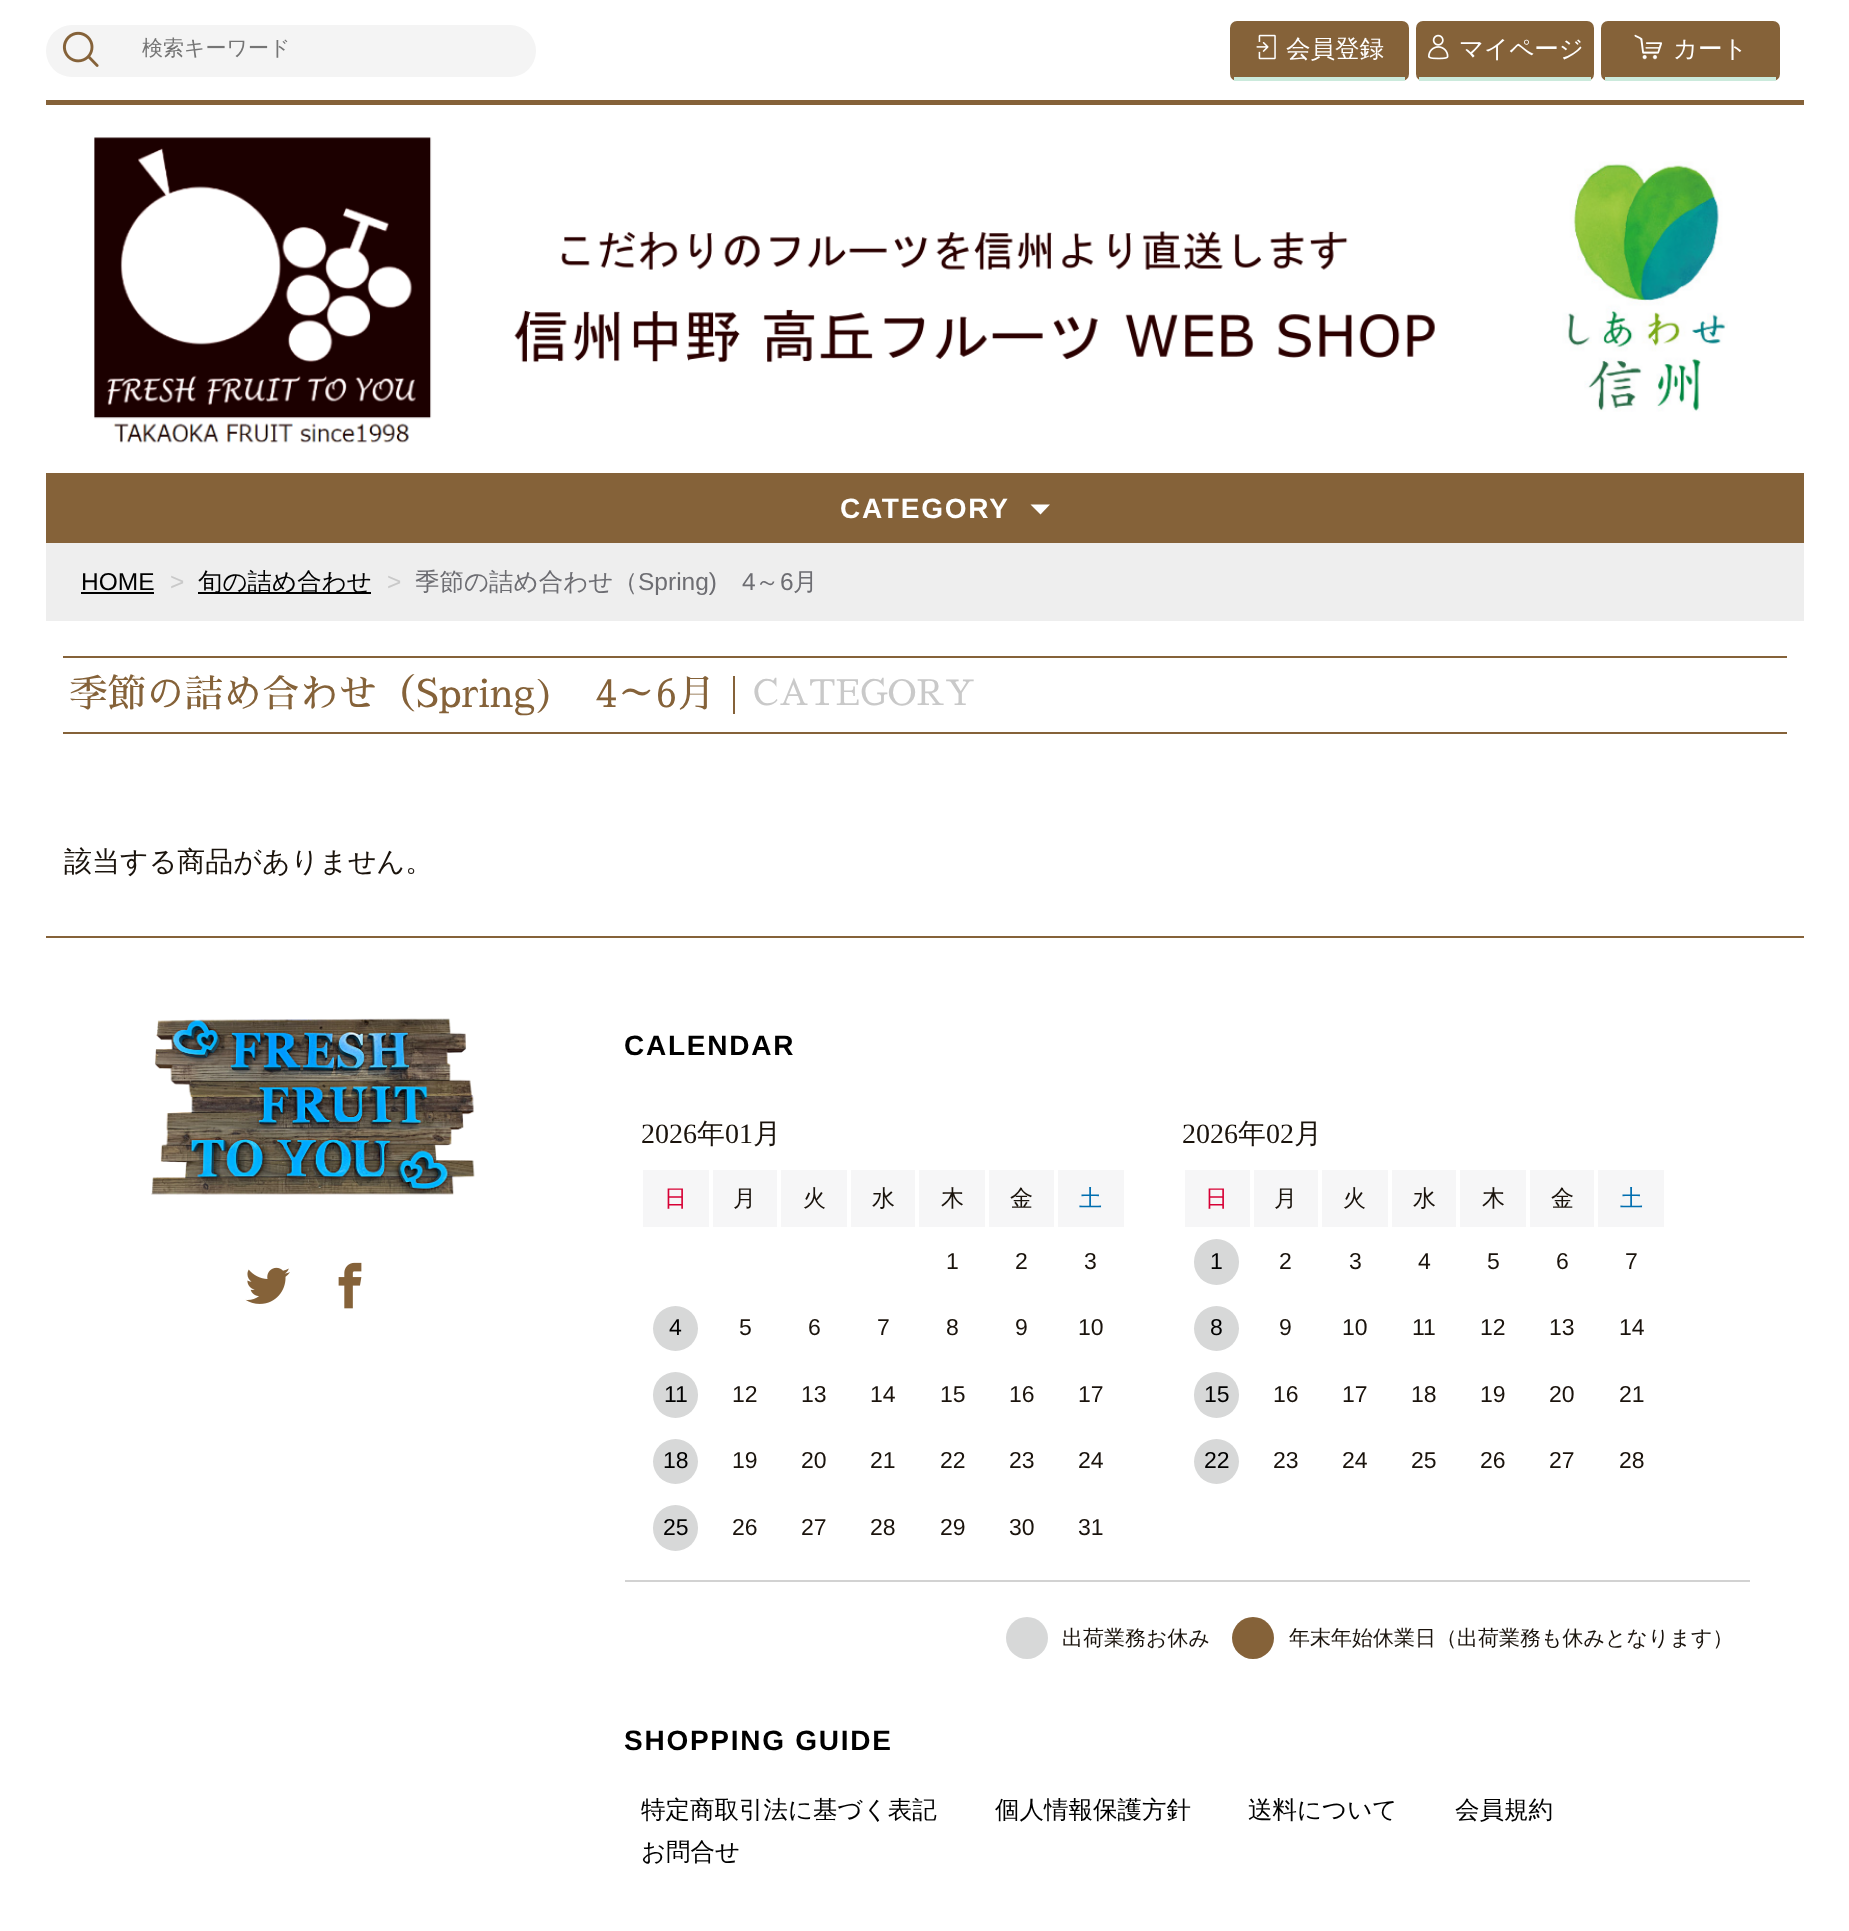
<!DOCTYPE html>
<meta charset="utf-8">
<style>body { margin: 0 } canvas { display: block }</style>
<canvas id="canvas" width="1849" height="1931"></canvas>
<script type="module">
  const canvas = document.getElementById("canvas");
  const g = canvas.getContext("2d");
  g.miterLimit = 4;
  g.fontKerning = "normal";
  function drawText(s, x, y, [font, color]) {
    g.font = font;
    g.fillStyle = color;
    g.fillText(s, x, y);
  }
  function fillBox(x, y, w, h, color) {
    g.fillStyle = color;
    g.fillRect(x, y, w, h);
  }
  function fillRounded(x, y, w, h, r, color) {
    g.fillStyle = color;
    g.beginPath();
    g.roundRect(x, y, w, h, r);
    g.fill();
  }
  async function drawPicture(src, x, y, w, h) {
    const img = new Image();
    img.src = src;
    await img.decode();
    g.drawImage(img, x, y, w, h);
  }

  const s1 = ["500 21px WenQuanYi Zen Hei", "#757575"];
  const s2 = ["500 24.5px WenQuanYi Zen Hei", "#FFFFFF"];
  const s3 = ["bold 28px Liberation Sans", "#FFFFFF"];
  const s4 = ["24.5px Liberation Sans", "#000000"];
  const s5 = ["24.5px Liberation Sans", "#C9C9C9"];
  const s6 = ["500 24.5px WenQuanYi Zen Hei", "#000000"];
  const s7 = ["500 24.5px WenQuanYi Zen Hei", "#6D6D72"];
  const s8 = ["24.5px Liberation Sans", "#6D6D72"];
  const s9 = ["38.5px Sawarabi Mincho", "#856239"];
  const s10 = ["35px Sawarabi Mincho", "#C9C9C9"];
  const s11 = ["500 28px WenQuanYi Zen Hei", "#1A130C"];
  const s12 = ["bold 28px Liberation Sans", "#000000"];
  const s13 = ["28px Liberation Serif", "#1A130C"];
  const s14 = ["500 23px WenQuanYi Zen Hei", "#D70035"];
  const s15 = ["500 23px WenQuanYi Zen Hei", "#1A130C"];
  const s16 = ["500 23px WenQuanYi Zen Hei", "#006EB0"];
  const s17 = ["23px Liberation Sans", "#1A130C"];
  const s18 = ["23px Liberation Sans", "#000000"];
  const s19 = ["500 21px WenQuanYi Zen Hei", "#1A130C"];

  fillBox(0, 0, 1849, 1931, "#FFFFFF");
  fillBox(46, 100, 1758, 5, "#856239");
  fillRounded(46, 25, 490, 52, 26, "#F4F4F4");
  await drawPicture("pic1.png", 62, 31, 37, 36);
  drawText("検索キーワード", 142, 55, s1);
  fillRounded(1230, 21, 179, 60, 7, "#856239");
  fillBox(1234, 77, 171, 4, "#CBEADC");
  await drawPicture("pic2.png", 1256, 34, 20, 26);
  drawText("会員登録", 1286, 57, s2);
  fillRounded(1416, 21, 178, 60, 7, "#856239");
  fillBox(1419, 77, 172, 4, "#CBEADC");
  await drawPicture("pic3.png", 1428, 34, 21, 26);
  drawText("マイページ", 1459, 57, s2);
  fillRounded(1601, 21, 179, 60, 7, "#856239");
  fillBox(1605, 77, 171, 4, "#CBEADC");
  await drawPicture("pic4.png", 1634, 34, 28, 26);
  drawText("カート", 1673, 57, s2);
  fillBox(46, 473, 1758, 70, "#856239");
  g.letterSpacing = "1.75px";
  drawText("CATEGORY", 840, 518, s3);
  g.beginPath();
  g.moveTo(1030.5, 504.5);
  g.lineTo(1040.5, 514.5);
  g.lineTo(1050, 504.5);
  g.closePath();
  g.fill();
  await drawPicture("pic5.png", 94, 137, 1634, 306);
  fillBox(46, 543, 1758, 78, "#EEEEEE");
  g.letterSpacing = "0px";
  drawText("HOME", 81, 590, s4);
  fillBox(81, 592, 73, 2, "#000000");
  drawText(">", 170, 590, s5);
  fillBox(198, 592, 173, 2, "#000000");
  drawText("旬の詰め合わせ", 198, 590, s6);
  drawText(">", 387, 590, s5);
  drawText("季節の詰め合わせ（", 415, 590, s7);
  drawText("Spring)", 638, 590, s8);
  drawText("4", 742, 590, s8);
  drawText("～", 755, 590, s7);
  drawText("6", 780, 590, s8);
  drawText("月", 793, 590, s7);
  fillBox(63, 656, 1724, 2, "#856239");
  fillBox(63, 732, 1724, 2, "#856239");
  fillBox(733, 676, 2, 38, "#856239");
  drawText("季節の詰め合わせ（Spring)　4～6月", 69, 707, s9);
  drawText("CATEGORY", 753, 705, s10);
  drawText("該当する商品がありません。", 64, 871, s11);
  fillBox(46, 936, 1758, 2, "#856239");
  await drawPicture("pic6.png", 151, 1018, 324, 177);
  await drawPicture("pic7.png", 245, 1267, 45, 37);
  await drawPicture("pic8.png", 338, 1262, 24, 47);
  g.letterSpacing = "1.75px";
  drawText("CALENDAR", 624, 1055, s12);
  g.letterSpacing = "0px";
  drawText("2026", 641, 1143, s13);
  drawText("年", 697, 1143, s11);
  drawText("01", 725, 1143, s13);
  drawText("月", 753, 1143, s11);
  fillBox(643, 1170, 66, 57, "#F6F6F7");
  drawText("日", 664, 1206, s14);
  fillBox(713, 1170, 64, 57, "#F6F6F7");
  drawText("月", 733, 1206, s15);
  fillBox(781, 1170, 66, 57, "#F6F6F7");
  drawText("火", 803, 1206, s15);
  fillBox(851, 1170, 64, 57, "#F6F6F7");
  drawText("水", 872, 1206, s15);
  fillBox(919, 1170, 66, 57, "#F6F6F7");
  drawText("木", 941, 1206, s15);
  fillBox(989, 1170, 65, 57, "#F6F6F7");
  drawText("金", 1010, 1206, s15);
  fillBox(1058, 1170, 66, 57, "#F6F6F7");
  drawText("土", 1079, 1206, s16);
  drawText("1", 946, 1269, s17);
  drawText("2", 1015, 1269, s17);
  drawText("3", 1084, 1269, s17);
  g.fillStyle = "#D7D8D8";
  g.beginPath();
  g.arc(675.5, 1328.5, 22.5, 0, Math.PI * 2);
  g.fill();
  drawText("4", 669, 1335, s18);
  drawText("5", 739, 1335, s17);
  drawText("6", 808, 1335, s17);
  drawText("7", 877, 1335, s17);
  drawText("8", 946, 1335, s17);
  drawText("9", 1015, 1335, s17);
  drawText("10", 1078, 1335, s17);
  fillRounded(653, 1372, 45, 46, 22.5, "#D7D8D8");
  drawText("11", 664, 1402, s18);
  drawText("12", 732, 1402, s17);
  drawText("13", 801, 1402, s17);
  drawText("14", 870, 1402, s17);
  drawText("15", 940, 1402, s17);
  drawText("16", 1009, 1402, s17);
  drawText("17", 1078, 1402, s17);
  g.fillStyle = "#D7D8D8";
  g.beginPath();
  g.arc(675.5, 1461.5, 22.5, 0, Math.PI * 2);
  g.fill();
  drawText("18", 663, 1468, s18);
  drawText("19", 732, 1468, s17);
  drawText("20", 801, 1468, s17);
  drawText("21", 870, 1468, s17);
  drawText("22", 940, 1468, s17);
  drawText("23", 1009, 1468, s17);
  drawText("24", 1078, 1468, s17);
  fillRounded(653, 1505, 45, 46, 22.5, "#D7D8D8");
  drawText("25", 663, 1535, s18);
  drawText("26", 732, 1535, s17);
  drawText("27", 801, 1535, s17);
  drawText("28", 870, 1535, s17);
  drawText("29", 940, 1535, s17);
  drawText("30", 1009, 1535, s17);
  drawText("31", 1078, 1535, s17);
  drawText("2026", 1182, 1143, s13);
  drawText("年", 1238, 1143, s11);
  drawText("02", 1266, 1143, s13);
  drawText("月", 1294, 1143, s11);
  fillBox(1185, 1170, 65, 57, "#F6F6F7");
  drawText("日", 1205, 1206, s14);
  fillBox(1254, 1170, 64, 57, "#F6F6F7");
  drawText("月", 1274, 1206, s15);
  fillBox(1322, 1170, 66, 57, "#F6F6F7");
  drawText("火", 1343, 1206, s15);
  fillBox(1392, 1170, 64, 57, "#F6F6F7");
  drawText("水", 1413, 1206, s15);
  fillBox(1460, 1170, 66, 57, "#F6F6F7");
  drawText("木", 1482, 1206, s15);
  fillBox(1530, 1170, 64, 57, "#F6F6F7");
  drawText("金", 1551, 1206, s15);
  fillBox(1598, 1170, 66, 57, "#F6F6F7");
  drawText("土", 1620, 1206, s16);
  fillRounded(1194, 1239, 45, 46, 22.5, "#D7D8D8");
  drawText("1", 1210, 1269, s18);
  drawText("2", 1279, 1269, s17);
  drawText("3", 1349, 1269, s17);
  drawText("4", 1418, 1269, s17);
  drawText("5", 1487, 1269, s17);
  drawText("6", 1556, 1269, s17);
  drawText("7", 1625, 1269, s17);
  g.fillStyle = "#D7D8D8";
  g.beginPath();
  g.arc(1216.5, 1328.5, 22.5, 0, Math.PI * 2);
  g.fill();
  drawText("8", 1210, 1335, s18);
  drawText("9", 1279, 1335, s17);
  drawText("10", 1342, 1335, s17);
  drawText("11", 1412, 1335, s17);
  drawText("12", 1480, 1335, s17);
  drawText("13", 1549, 1335, s17);
  drawText("14", 1619, 1335, s17);
  fillRounded(1194, 1372, 45, 46, 22.5, "#D7D8D8");
  drawText("15", 1204, 1402, s18);
  drawText("16", 1273, 1402, s17);
  drawText("17", 1342, 1402, s17);
  drawText("18", 1411, 1402, s17);
  drawText("19", 1480, 1402, s17);
  drawText("20", 1549, 1402, s17);
  drawText("21", 1619, 1402, s17);
  g.fillStyle = "#D7D8D8";
  g.beginPath();
  g.arc(1216.5, 1461.5, 22.5, 0, Math.PI * 2);
  g.fill();
  drawText("22", 1204, 1468, s18);
  drawText("23", 1273, 1468, s17);
  drawText("24", 1342, 1468, s17);
  drawText("25", 1411, 1468, s17);
  drawText("26", 1480, 1468, s17);
  drawText("27", 1549, 1468, s17);
  drawText("28", 1619, 1468, s17);
  fillBox(625, 1580, 1125, 2, "#D2D2D2");
  g.fillStyle = "#D7D8D8";
  g.beginPath();
  g.arc(1027, 1638, 21, 0, Math.PI * 2);
  g.fill();
  drawText("出荷業務お休み", 1062, 1645, s19);
  g.fillStyle = "#856239";
  g.beginPath();
  g.arc(1253, 1638, 21, 0, Math.PI * 2);
  g.fill();
  drawText("年末年始休業日（出荷業務も休みとなります）", 1289, 1645, s19);
  g.letterSpacing = "1.75px";
  drawText("SHOPPING GUIDE", 624, 1750, s12);
  g.letterSpacing = "0px";
  drawText("特定商取引法に基づく表記", 641, 1818, s6);
  drawText("個人情報保護方針", 995, 1818, s6);
  drawText("送料について", 1248, 1818, s6);
  drawText("会員規約", 1455, 1818, s6);
  drawText("お問合せ", 641, 1860, s6);
</script>
